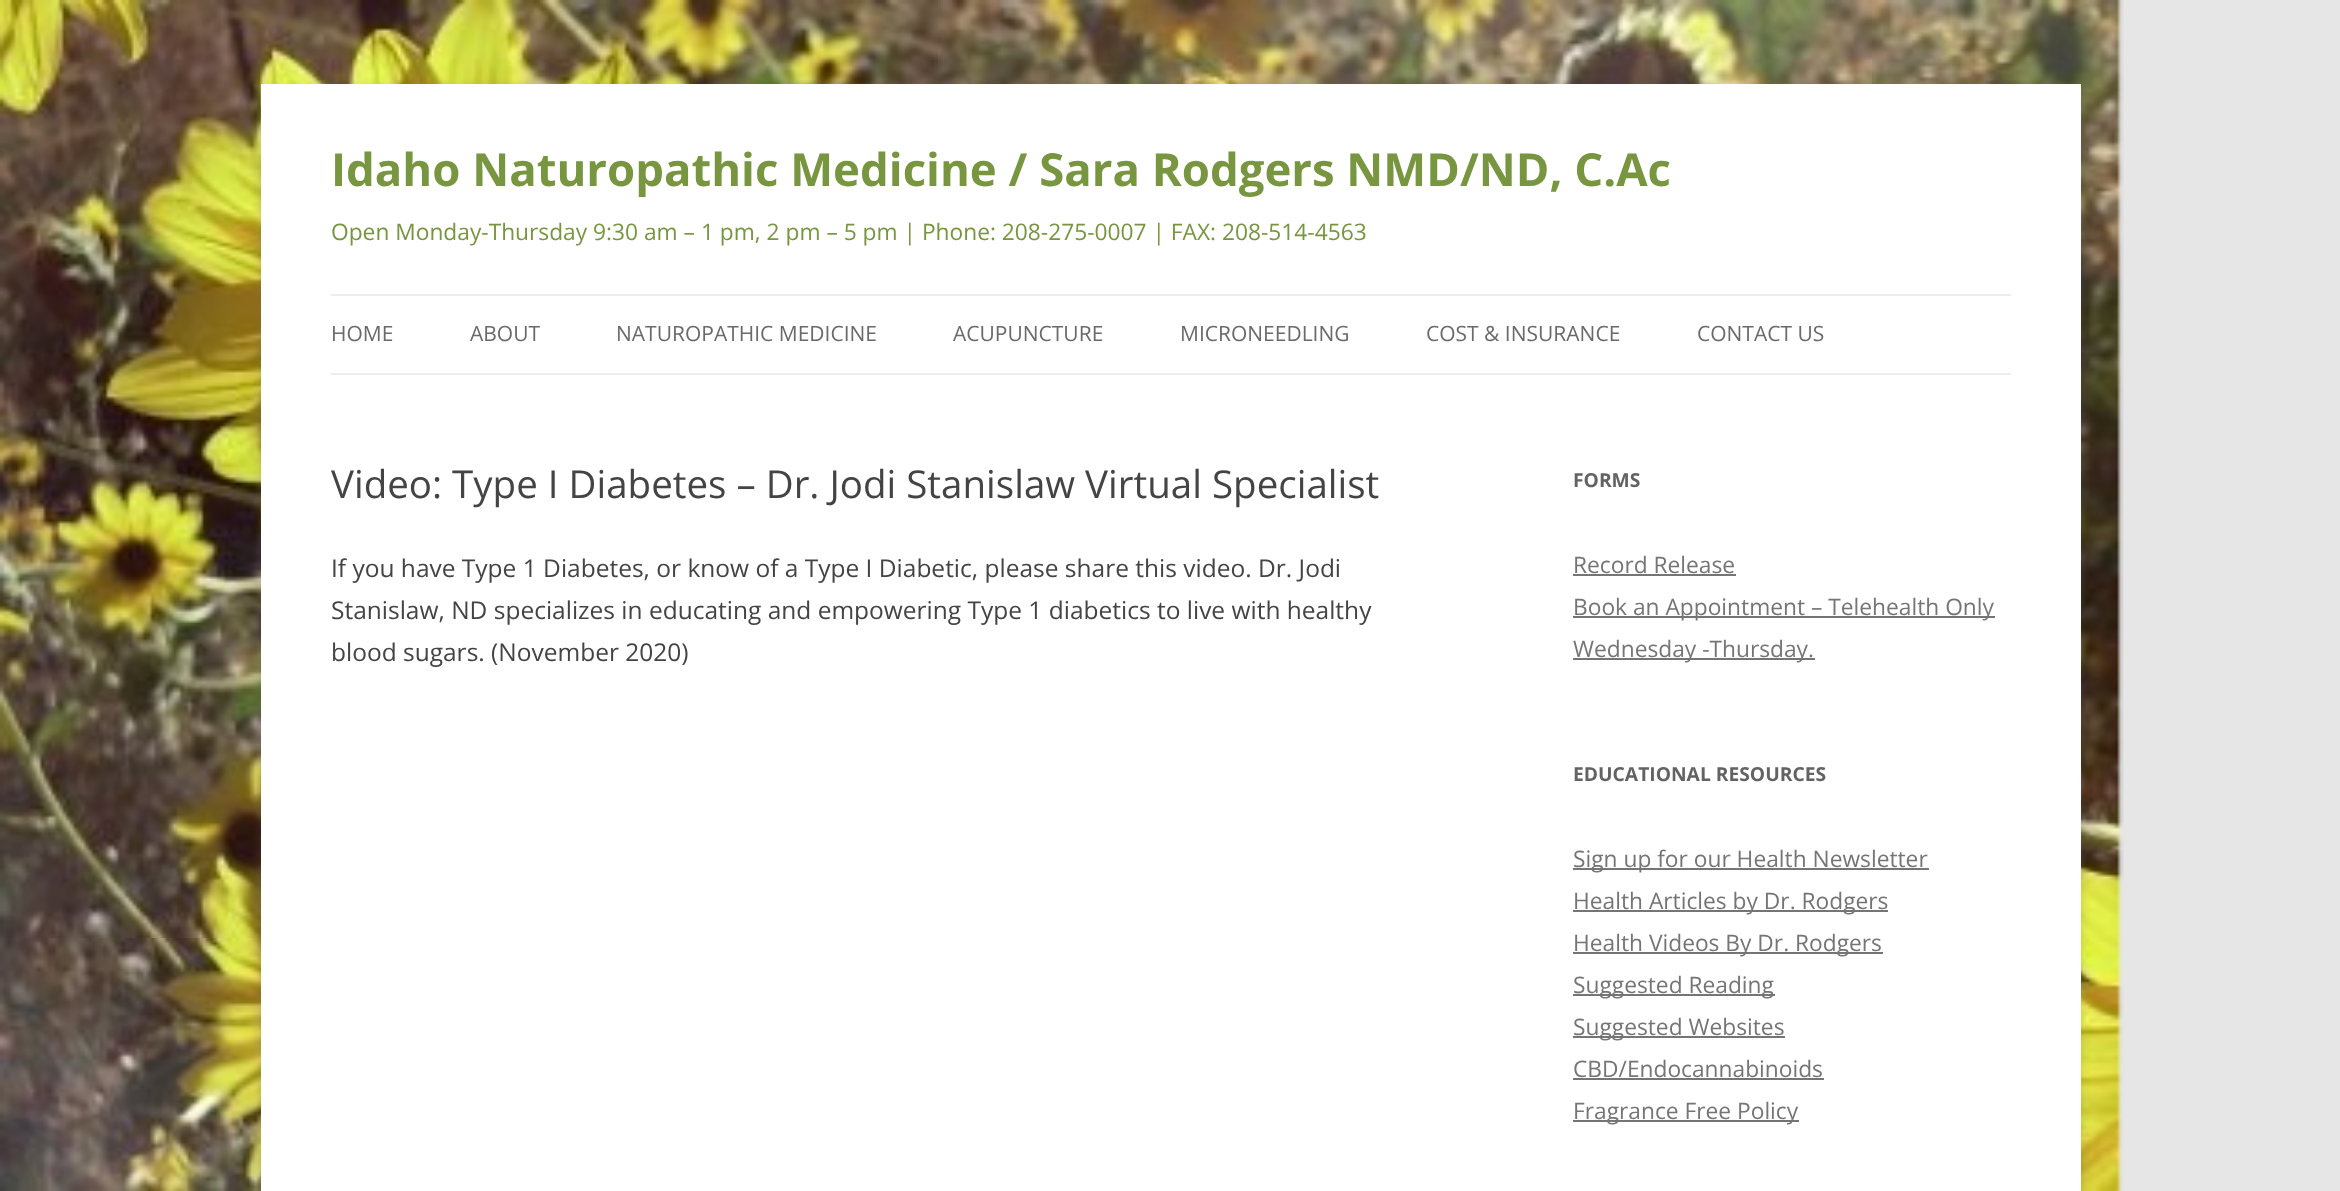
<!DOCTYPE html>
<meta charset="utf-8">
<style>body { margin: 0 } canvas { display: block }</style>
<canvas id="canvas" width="2340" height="1191"></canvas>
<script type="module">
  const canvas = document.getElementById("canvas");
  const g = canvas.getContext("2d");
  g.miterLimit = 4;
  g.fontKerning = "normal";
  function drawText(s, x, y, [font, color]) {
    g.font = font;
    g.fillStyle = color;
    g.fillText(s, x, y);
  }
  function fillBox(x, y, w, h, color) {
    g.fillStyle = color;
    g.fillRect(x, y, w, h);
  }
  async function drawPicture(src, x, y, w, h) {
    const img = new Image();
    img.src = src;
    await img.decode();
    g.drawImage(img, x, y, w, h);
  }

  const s1 = ["bold 45.5px Open Sans", "#77963F"];
  const s2 = ["22.75px Open Sans", "#77963F"];
  const s3 = ["21px Open Sans", "#6A6A6A"];
  const s4 = ["38.5px Open Sans", "#444444"];
  const s5 = ["24.5px Open Sans", "#444444"];
  const s6 = ["bold 19.25px Open Sans", "#636363"];
  const s7 = ["22.75px Open Sans", "#757575"];

  fillBox(0, 0, 2340, 1191, "#E6E6E6");
  await drawPicture("pic1.png", 0, 0, 2124, 1191);
  g.fillStyle = "rgba(100, 100, 100, 0.3)";
  g.filter = "blur(5px)";
  g.beginPath();
  g.rect(261, 88, 1820, 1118);
  g.fill();
  g.filter = "none";
  fillBox(261, 84, 1820, 1107, "#FFFFFF");
  drawText("Idaho Naturopathic Medicine / Sara Rodgers NMD/ND, C.Ac", 331, 186, s1);
  drawText("Open Monday-Thursday 9:30 am – 1 pm, 2 pm – 5 pm | Phone: 208-275-0007 | FAX: 208-514-4563", 331, 240, s2);
  fillBox(331, 294, 1680, 2, "#EDEDED");
  fillBox(331, 373, 1680, 2, "#EDEDED");
  drawText("HOME", 331, 341, s3);
  drawText("ABOUT", 470, 341, s3);
  drawText("NATUROPATHIC MEDICINE", 616, 341, s3);
  drawText("ACUPUNCTURE", 953, 341, s3);
  drawText("MICRONEEDLING", 1180, 341, s3);
  drawText("COST & INSURANCE", 1426, 341, s3);
  drawText("CONTACT US", 1697, 341, s3);
  drawText("Video: Type I Diabetes – Dr. Jodi Stanislaw Virtual Specialist", 331, 498, s4);
  drawText("If you have Type 1 Diabetes, or know of a Type I Diabetic, please share this video. Dr. Jodi", 331, 577, s5);
  drawText("Stanislaw, ND specializes in educating and empowering Type 1 diabetics to live with healthy", 331, 619, s5);
  drawText("blood sugars. (November 2020)", 331, 661, s5);
  drawText("FORMS", 1573, 487, s6);
  drawText("Record Release", 1573, 573, s7);
  fillBox(1573, 574, 163, 2, "#757575");
  fillBox(1573, 616, 422, 2, "#757575");
  drawText("Book an Appointment – Telehealth Only", 1573, 615, s7);
  fillBox(1573, 658, 242, 2, "#757575");
  drawText("Wednesday -Thursday.", 1573, 657, s7);
  drawText("EDUCATIONAL RESOURCES", 1573, 781, s6);
  fillBox(1573, 868, 356, 2, "#757575");
  drawText("Sign up for our Health Newsletter", 1573, 867, s7);
  fillBox(1573, 910, 315, 2, "#757575");
  drawText("Health Articles by Dr. Rodgers", 1573, 909, s7);
  fillBox(1573, 952, 310, 2, "#757575");
  drawText("Health Videos By Dr. Rodgers", 1573, 951, s7);
  fillBox(1573, 994, 202, 2, "#757575");
  drawText("Suggested Reading", 1573, 993, s7);
  fillBox(1573, 1036, 212, 2, "#757575");
  drawText("Suggested Websites", 1573, 1035, s7);
  drawText("CBD/Endocannabinoids", 1573, 1077, s7);
  fillBox(1573, 1078, 251, 2, "#757575");
  fillBox(1573, 1120, 226, 2, "#757575");
  drawText("Fragrance Free Policy", 1573, 1119, s7);
</script>
